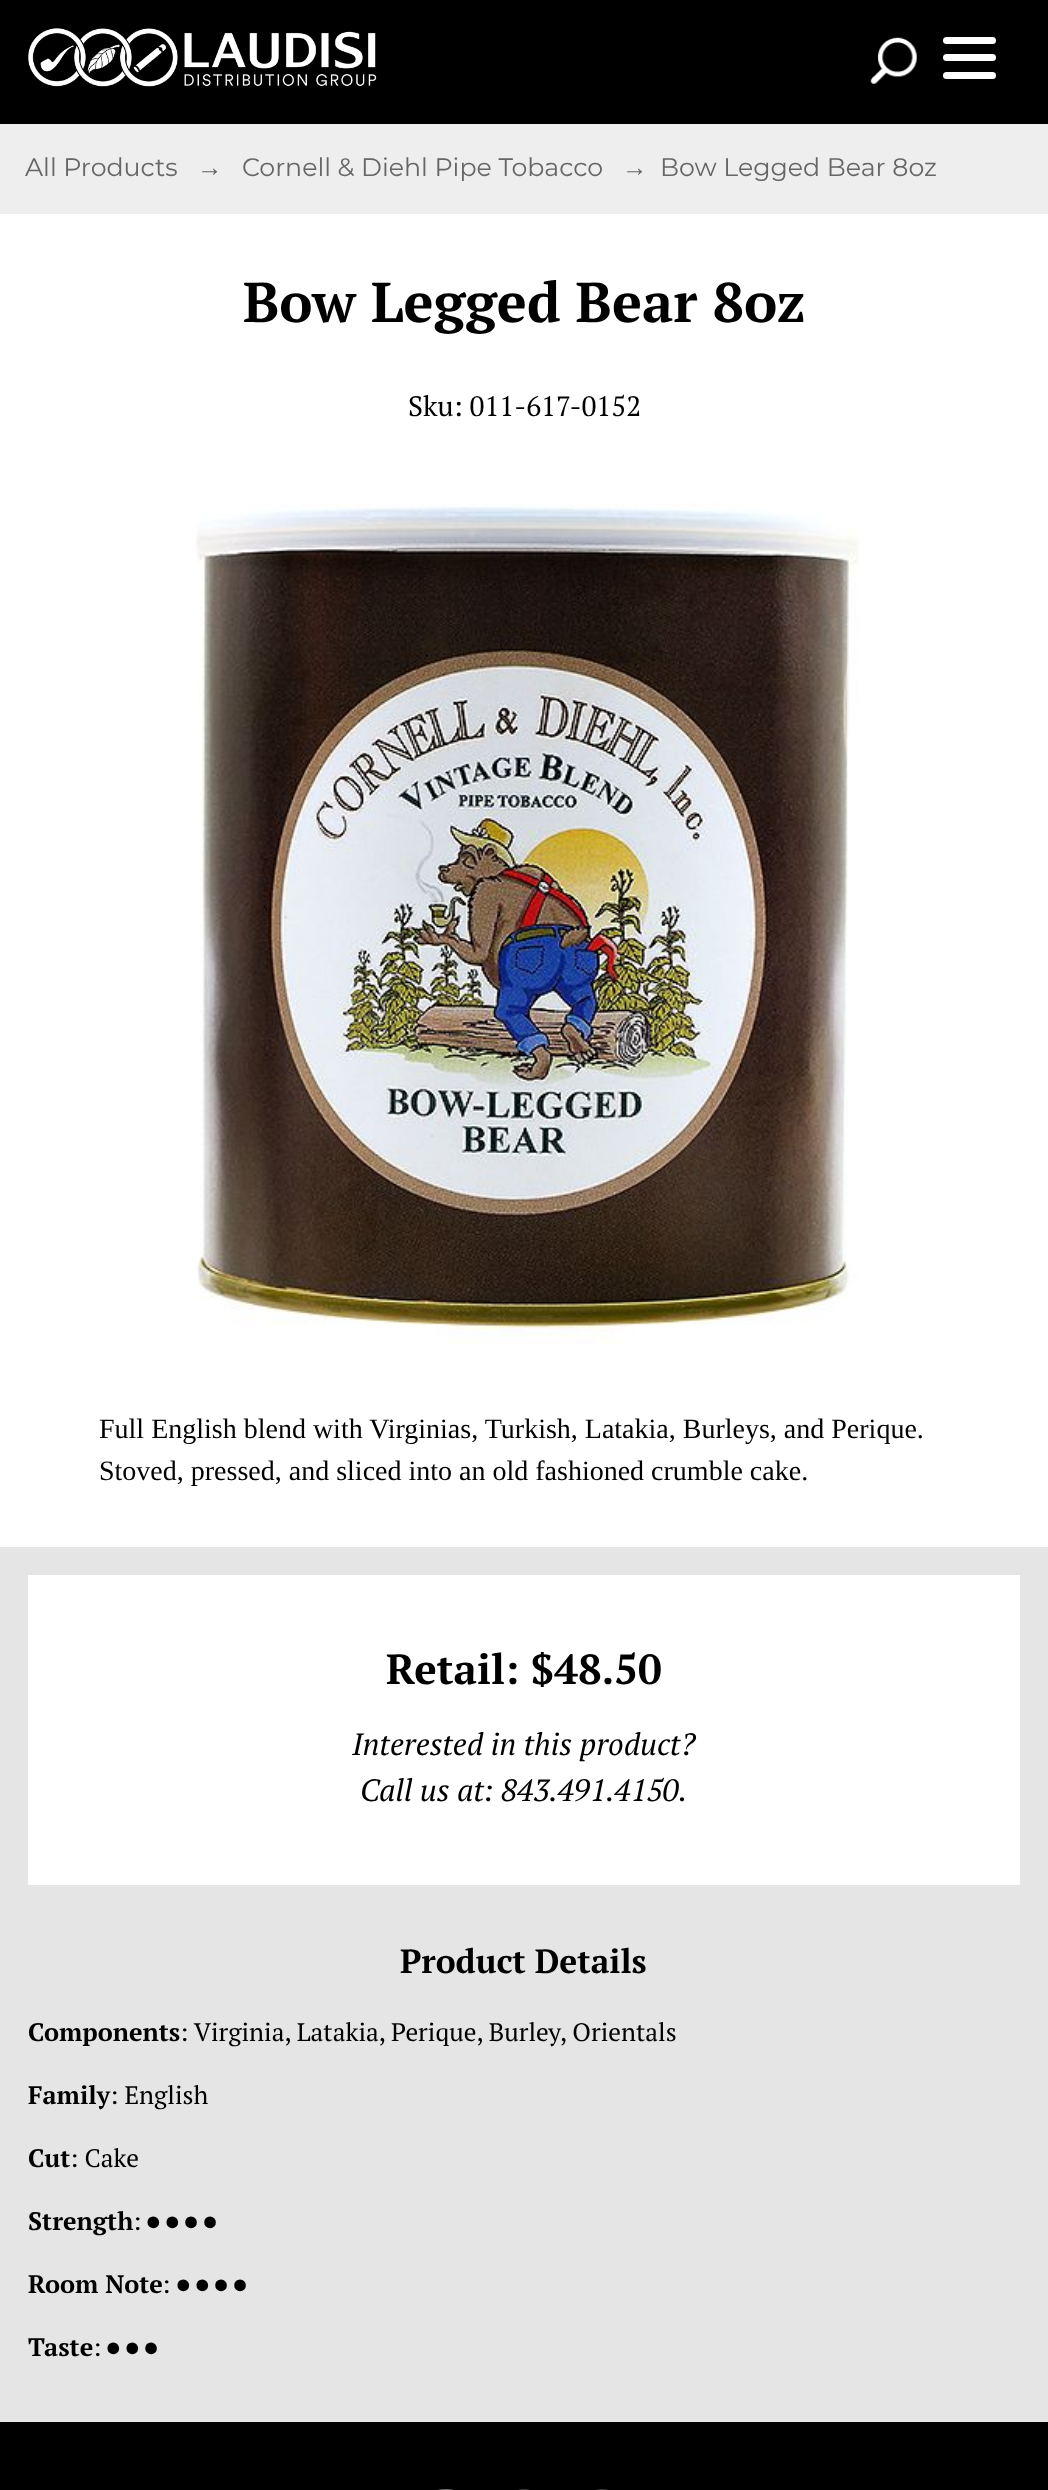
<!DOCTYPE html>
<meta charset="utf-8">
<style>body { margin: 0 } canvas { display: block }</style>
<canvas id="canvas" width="1048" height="2490"></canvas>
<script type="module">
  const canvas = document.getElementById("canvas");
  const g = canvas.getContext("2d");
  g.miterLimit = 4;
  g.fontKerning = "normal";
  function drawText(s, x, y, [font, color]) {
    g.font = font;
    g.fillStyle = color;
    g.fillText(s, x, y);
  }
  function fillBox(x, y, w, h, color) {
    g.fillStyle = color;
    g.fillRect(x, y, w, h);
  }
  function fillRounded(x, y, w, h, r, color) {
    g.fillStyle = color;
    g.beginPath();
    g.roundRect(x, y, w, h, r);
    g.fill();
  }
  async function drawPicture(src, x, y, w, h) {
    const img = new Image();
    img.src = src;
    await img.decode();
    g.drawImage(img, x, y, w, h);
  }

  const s1 = ["25.25px Montserrat", "#666666"];
  const s2 = ["25.25px Liberation Sans", "#666666"];
  const s3 = ["bold 56px PT Serif", "#000000"];
  const s4 = ["28px PT Serif", "#000000"];
  const s5 = ["28px Liberation Serif", "#000000"];
  const s6 = ["bold 42px PT Serif", "#000000"];
  const s7 = ["italic 30.75px PT Serif", "#000000"];
  const s8 = ["bold 33.5px PT Serif", "#000000"];
  const s9 = ["bold 25.25px PT Serif", "#000000"];
  const s10 = ["25.25px PT Serif", "#000000"];
  const s11 = ["25.25px FreeSans", "#000000"];

  fillBox(0, 0, 1048, 2490, "#FFFFFF");
  fillBox(0, 0, 1048, 124, "#000000");
  await drawPicture("pic1.png", 28, 28, 349, 59);
  await drawPicture("pic2.png", 870, 37, 47, 47);
  fillRounded(943, 37, 53, 7, 3.5, "#FFFFFF");
  fillRounded(943, 54, 53, 7, 3.5, "#FFFFFF");
  fillRounded(943, 72, 53, 7, 3.5, "#FFFFFF");
  fillBox(0, 124, 1048, 90, "#EEEEEE");
  drawText("All Products", 25, 176, s1);
  drawText("→", 197, 176, s2);
  drawText("Cornell & Diehl Pipe Tobacco", 242, 176, s1);
  drawText("→", 622, 176, s2);
  drawText("Bow Legged Bear 8oz", 660, 176, s1);
  drawText("Bow Legged Bear 8oz", 243, 322, s3);
  drawText("Sku: 011-617-0152", 408, 416, s4);
  await drawPicture("pic3.png", 196, 503, 664, 841);
  drawText("Full English blend with Virginias, Turkish, Latakia, Burleys, and Perique.", 99, 1438, s5);
  drawText("Stoved, pressed, and sliced into an old fashioned crumble cake.", 99, 1480, s5);
  fillBox(0, 1547, 1048, 875, "#E5E5E5");
  fillBox(28, 1575, 992, 310, "#FFFFFF");
  drawText("Retail: $48.50", 386, 1684, s6);
  drawText("Interested in this product?", 352, 1755, s7);
  drawText("Call us at: 843.491.4150.", 360, 1801, s7);
  drawText("Product Details", 400, 1973, s8);
  drawText("Components", 28, 2041, s9);
  drawText(": Virginia, Latakia, Perique, Burley, Orientals", 180, 2041, s10);
  drawText("Family", 28, 2104, s9);
  drawText(": English", 110, 2104, s10);
  drawText("Cut", 28, 2167, s9);
  drawText(": Cake", 70, 2167, s10);
  drawText("Strength", 28, 2230, s9);
  drawText(":", 133, 2230, s10);
  drawText("⏺ ⏺ ⏺ ⏺", 147, 2230, s11);
  drawText("Room Note", 28, 2293, s9);
  drawText(":", 162, 2293, s10);
  drawText("⏺ ⏺ ⏺ ⏺", 177, 2293, s11);
  drawText("Taste", 28, 2356, s9);
  drawText(":", 93, 2356, s10);
  drawText("⏺ ⏺ ⏺", 107, 2356, s11);
  fillBox(0, 2422, 1048, 68, "#000000");
  await drawPicture("pic4.png", 437, 2489, 171, 1);
</script>
